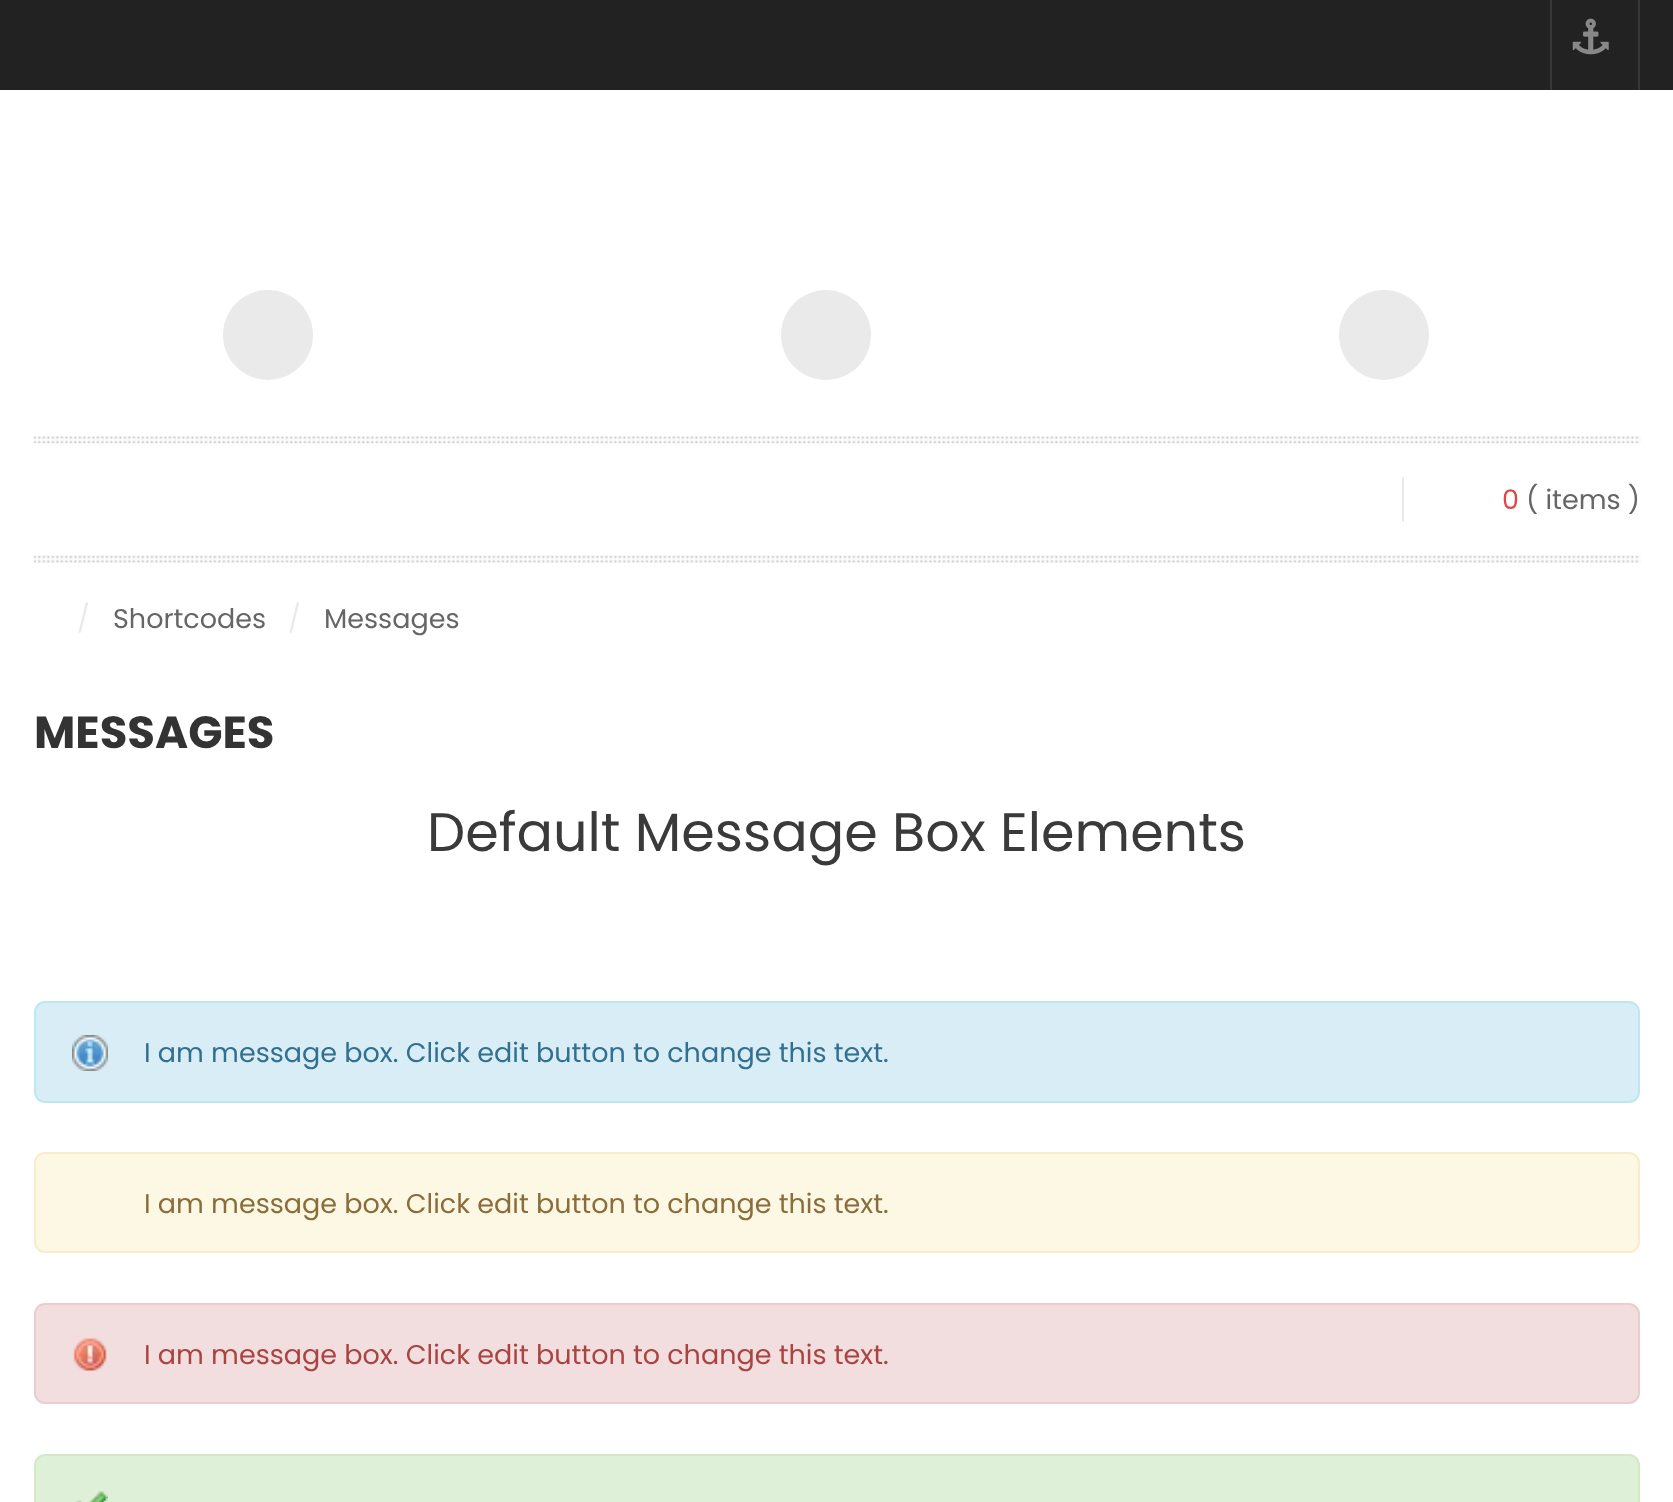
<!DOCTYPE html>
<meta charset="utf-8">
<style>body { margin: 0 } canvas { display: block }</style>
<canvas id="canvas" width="1673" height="1502"></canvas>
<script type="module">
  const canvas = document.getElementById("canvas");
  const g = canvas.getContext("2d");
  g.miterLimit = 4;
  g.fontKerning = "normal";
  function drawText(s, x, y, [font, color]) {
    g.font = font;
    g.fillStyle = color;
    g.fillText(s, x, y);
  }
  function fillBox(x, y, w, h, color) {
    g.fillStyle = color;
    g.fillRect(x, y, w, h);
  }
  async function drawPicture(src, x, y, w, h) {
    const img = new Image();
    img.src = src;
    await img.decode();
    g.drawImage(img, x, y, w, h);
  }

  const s1 = ["27px Poppins", "#E34444"];
  const s2 = ["27px Poppins", "#666666"];
  const s3 = ["27px Poppins", "#EAEAEA"];
  const s4 = ["bold 45px Poppins", "#333333"];
  const s5 = ["54px Poppins", "#3A3A3A"];
  const s6 = ["27px Poppins", "#31708F"];
  const s7 = ["27px Poppins", "#8A6D3B"];
  const s8 = ["27px Poppins", "#A94442"];

  fillBox(0, 0, 1673, 1502, "#FFFFFF");
  fillBox(0, 0, 1673, 90, "#222222");
  fillBox(1638, 0, 2, 90, "#363636");
  fillBox(1550, 0, 2, 90, "#363636");
  await drawPicture("pic1.png", 1572, 18, 37, 37);
  g.fillStyle = "#EAEAEA";
  g.beginPath();
  g.arc(268, 335, 45, 0, Math.PI * 2);
  g.fill();
  g.beginPath();
  g.arc(826, 335, 45, 0, Math.PI * 2);
  g.fill();
  g.beginPath();
  g.arc(1384, 335, 45, 0, Math.PI * 2);
  g.fill();
  await drawPicture("pic2.png", 33, 436, 1608, 8);
  fillBox(1402, 477, 2, 45, "#EAEAEA");
  drawText("0", 1502, 509, s1);
  drawText("( items )", 1526, 509, s2);
  await drawPicture("pic3.png", 33, 555, 1608, 8);
  drawText("/", 77, 628, s3);
  drawText("Shortcodes", 113, 628, s2);
  drawText("/", 288, 628, s3);
  drawText("Messages", 324, 628, s2);
  drawText("MESSAGES", 34, 748, s4);
  drawText("Default Message Box Elements", 427, 851, s5);
  g.fillStyle = "#D9EDF7";
  g.beginPath();
  g.roundRect(35, 1002, 1604, 100, 10);
  g.fill();
  g.strokeStyle = "#BCE8F1";
  g.lineWidth = 2;
  g.stroke();
  await drawPicture("pic4.png", 72, 1035, 36, 36);
  drawText("I am message box. Click edit button to change this text.", 144, 1062, s6);
  g.fillStyle = "#FCF8E3";
  g.beginPath();
  g.roundRect(35, 1153, 1604, 99, 10);
  g.fill();
  g.strokeStyle = "#FAEBCC";
  g.stroke();
  drawText("I am message box. Click edit button to change this text.", 144, 1213, s7);
  g.fillStyle = "#F2DEDE";
  g.beginPath();
  g.roundRect(35, 1304, 1604, 99, 10);
  g.fill();
  g.strokeStyle = "#EBCCD1";
  g.stroke();
  await drawPicture("pic5.png", 73, 1338, 34, 33);
  drawText("I am message box. Click edit button to change this text.", 144, 1364, s8);
  g.fillStyle = "#DFF0D8";
  g.beginPath();
  g.roundRect(35, 1455, 1604, 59, 10);
  g.fill();
  g.strokeStyle = "#D6E9C6";
  g.stroke();
  await drawPicture("pic6.png", 76, 1491, 32, 11);
</script>
